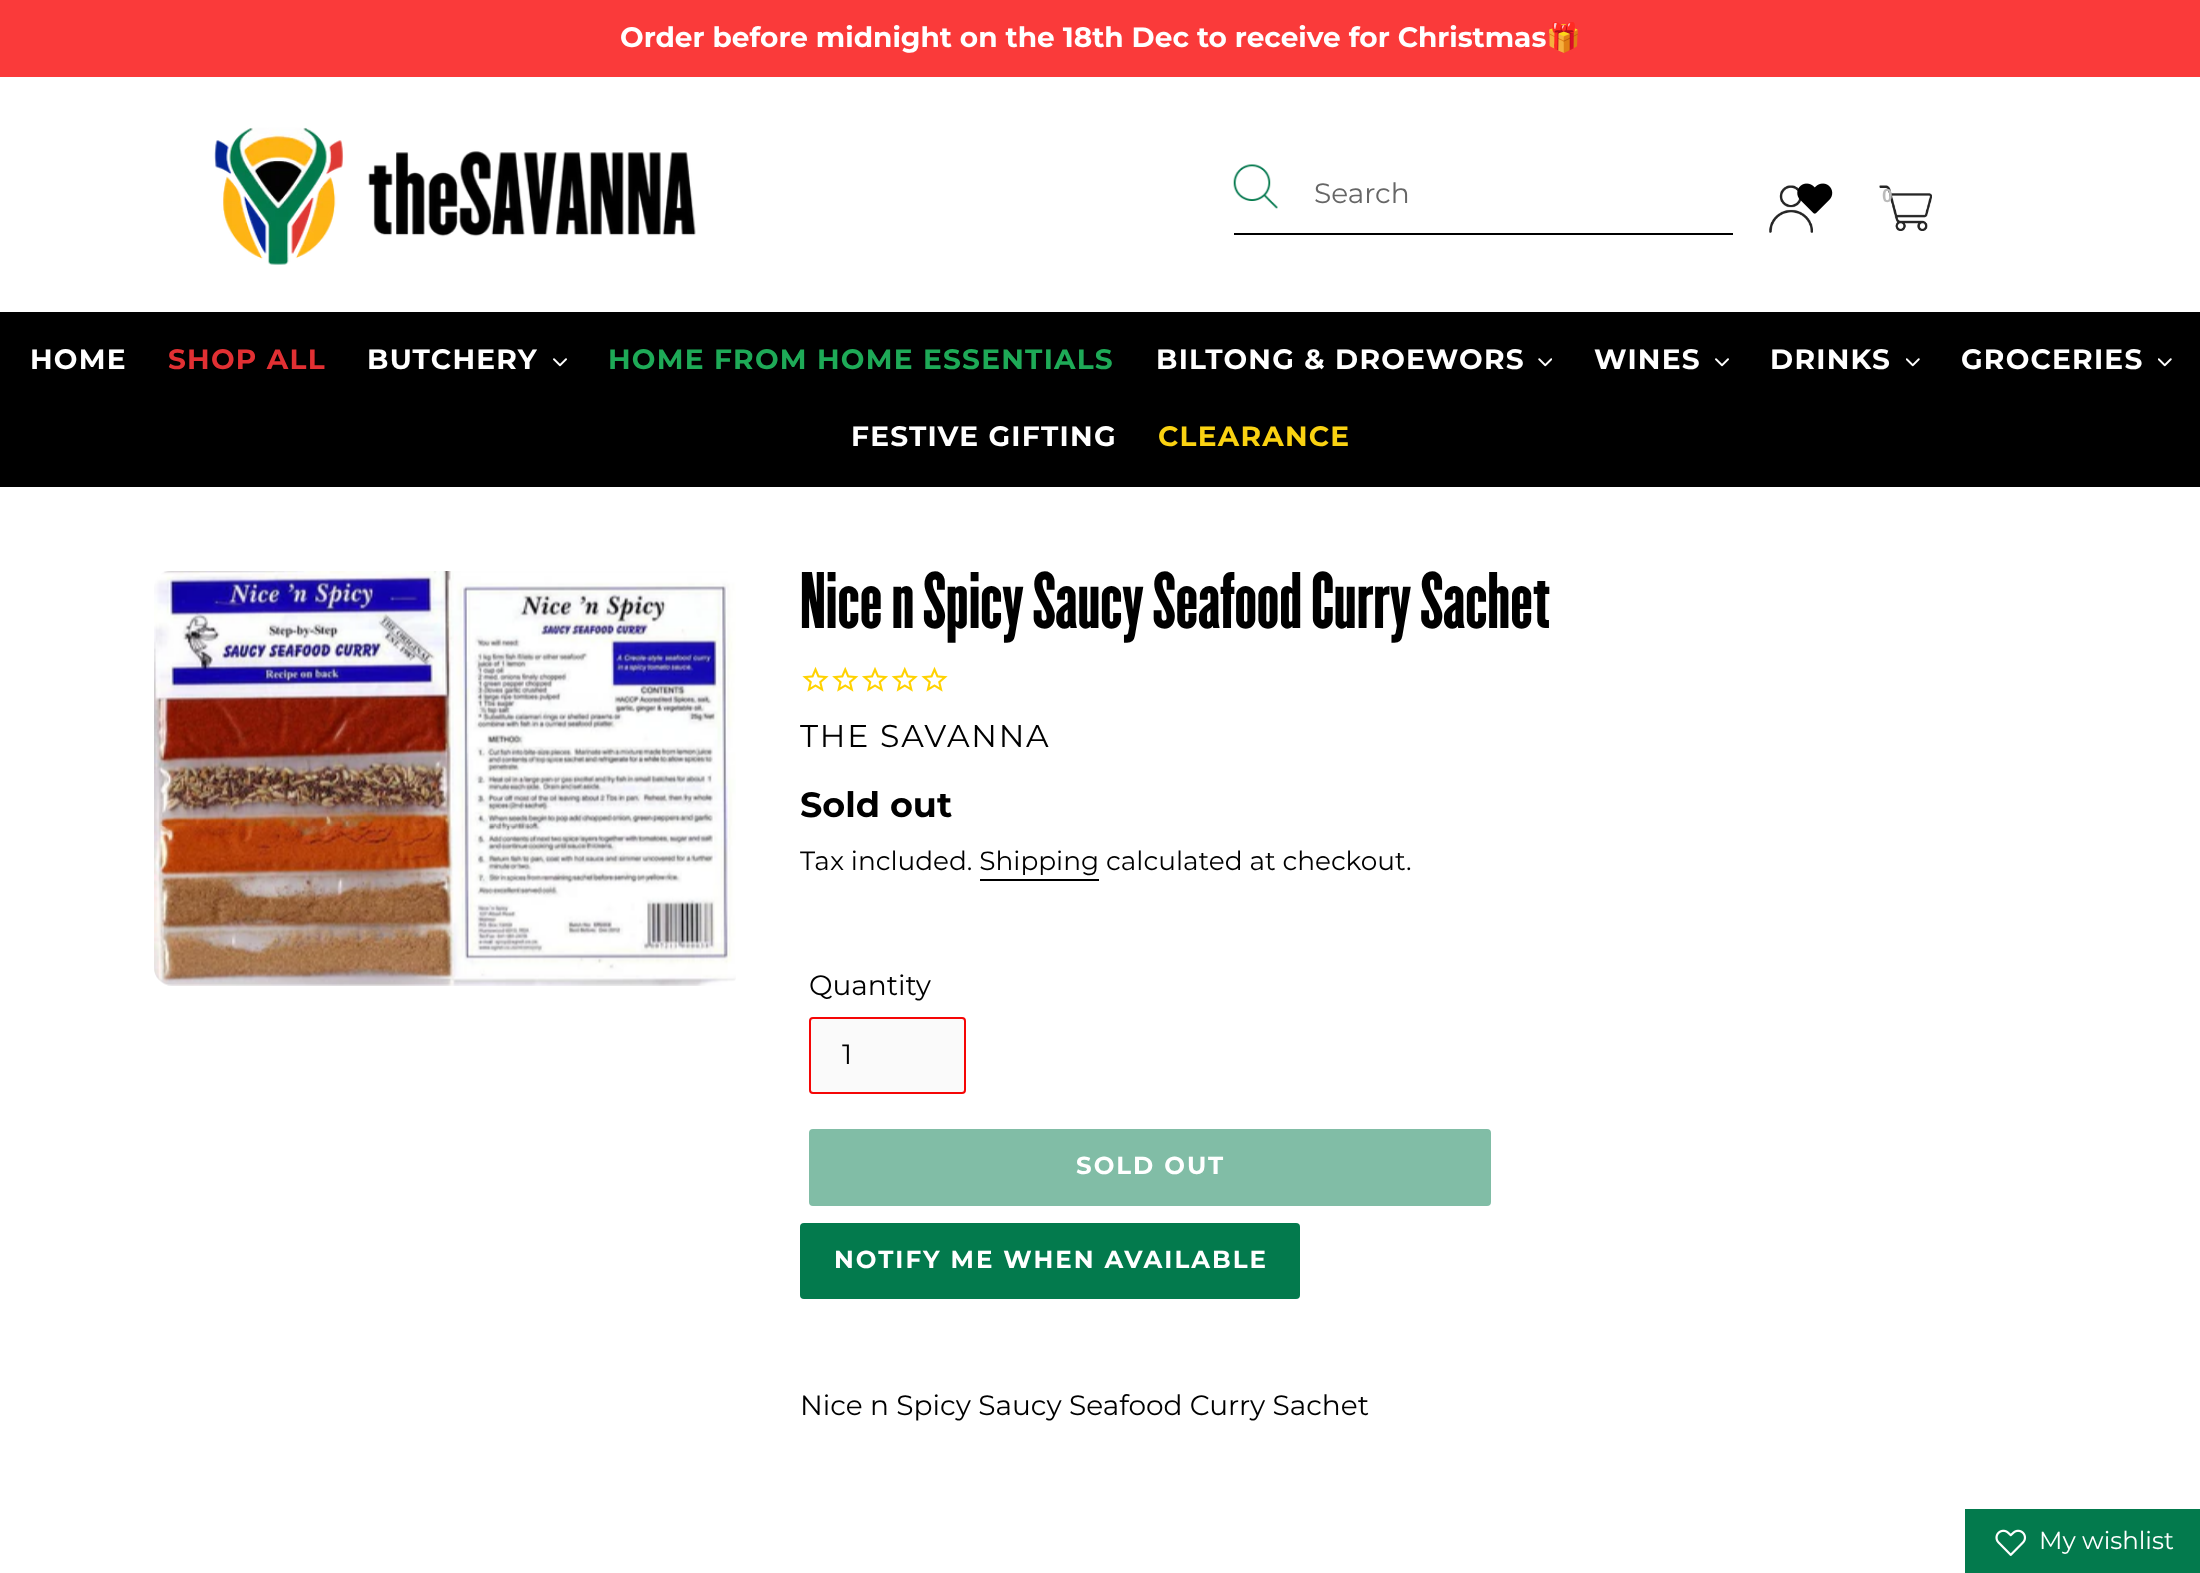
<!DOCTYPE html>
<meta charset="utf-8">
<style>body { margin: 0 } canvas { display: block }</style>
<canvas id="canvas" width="2200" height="1573"></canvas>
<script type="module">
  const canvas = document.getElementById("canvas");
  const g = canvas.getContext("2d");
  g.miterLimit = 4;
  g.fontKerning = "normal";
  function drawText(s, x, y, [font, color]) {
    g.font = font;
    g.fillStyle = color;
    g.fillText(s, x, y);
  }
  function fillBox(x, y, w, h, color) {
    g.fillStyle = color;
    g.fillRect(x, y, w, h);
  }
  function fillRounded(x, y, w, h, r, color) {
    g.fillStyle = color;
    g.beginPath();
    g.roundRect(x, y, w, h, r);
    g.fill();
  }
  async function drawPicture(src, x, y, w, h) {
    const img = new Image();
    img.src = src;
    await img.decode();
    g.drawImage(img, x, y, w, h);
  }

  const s1 = ["bold 28px Montserrat", "#FFFFFF"];
  const s2 = ["bold 28px Noto Color Emoji", "#FFFFFF"];
  const s3 = ["28px Montserrat", "#666666"];
  const s4 = ["bold 19px Liberation Sans", "#BBBBBB"];
  const s5 = ["bold 28px Montserrat", "#E13033"];
  const s6 = ["bold 28px Montserrat", "#1EAA57"];
  const s7 = ["bold 28px Montserrat", "#FAD211"];
  const s8 = ["500 70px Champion", "#000000"];
  const s9 = ["31.5px Montserrat", "#000000"];
  const s10 = ["bold 35px Montserrat", "#000000"];
  const s11 = ["26.35px Montserrat", "#000000"];
  const s12 = ["28px Montserrat", "#000000"];
  const s13 = ["bold 24.5px Montserrat", "#FFFFFF"];
  const s14 = ["24.5px Montserrat", "#FFFFFF"];

  fillBox(0, 0, 2200, 1573, "#FFFFFF");
  fillBox(0, 0, 2200, 77, "#FA3A3A");
  drawText("Order before midnight on the 18th Dec to receive for Christmas", 620, 47, s1);
  drawText("🎁", 1546, 47, s2);
  await drawPicture("pic1.png", 214, 127, 482, 138);
  fillBox(1234, 233, 499, 2, "#000000");
  await drawPicture("pic2.png", 1233, 164, 45, 45);
  drawText("Search", 1314, 203, s3);
  await drawPicture("pic3.png", 1769, 185, 44, 48);
  await drawPicture("pic4.png", 1797, 183, 36, 31);
  await drawPicture("pic5.png", 1879, 185, 53, 46);
  drawText("0", 1882, 202, s4);
  fillBox(0, 312, 2200, 175, "#000000");
  g.letterSpacing = "1.25px";
  drawText("HOME", 30, 369, s1);
  drawText("SHOP ALL", 168, 369, s5);
  drawText("BUTCHERY", 367, 369, s1);
  await drawPicture("pic6.png", 553, 358, 14, 9);
  drawText("HOME FROM HOME ESSENTIALS", 608, 369, s6);
  drawText("BILTONG & DROEWORS", 1156, 369, s1);
  await drawPicture("pic7.png", 1538, 358, 14, 9);
  drawText("WINES", 1594, 369, s1);
  await drawPicture("pic6.png", 1715, 358, 14, 9);
  drawText("DRINKS", 1770, 369, s1);
  await drawPicture("pic8.png", 1906, 358, 14, 9);
  drawText("GROCERIES", 1961, 369, s1);
  await drawPicture("pic8.png", 2158, 358, 14, 9);
  drawText("FESTIVE GIFTING", 851, 446, s1);
  drawText("CLEARANCE", 1158, 446, s7);
  await drawPicture("pic9.png", 154, 571, 582, 415);
  g.letterSpacing = "0px";
  drawText("Nice n Spicy Saucy Seafood Curry Sachet", 800, 628, s8);
  await drawPicture("pic10.png", 802, 666, 27, 26);
  await drawPicture("pic11.png", 832, 666, 27, 26);
  await drawPicture("pic12.png", 862, 667, 26, 25);
  await drawPicture("pic13.png", 891, 666, 27, 26);
  await drawPicture("pic10.png", 921, 666, 27, 26);
  g.letterSpacing = "1.75px";
  drawText("THE SAVANNA", 800, 747, s9);
  g.letterSpacing = "0px";
  drawText("Sold out", 800, 817, s10);
  drawText("Tax included. Shipping calculated at checkout.", 800, 870, s11);
  fillBox(980, 879, 119, 2, "#000000");
  drawText("Quantity", 809, 995, s12);
  g.fillStyle = "#FAFAFA";
  g.beginPath();
  g.roundRect(810, 1018, 155, 75, 3);
  g.fill();
  g.strokeStyle = "#F50606";
  g.lineWidth = 2;
  g.stroke();
  drawText("1", 842, 1064, s12);
  g.fillStyle = "#81BDA6";
  g.beginPath();
  g.roundRect(810, 1130, 680, 75, 3);
  g.fill();
  g.strokeStyle = "#81BDA6";
  g.stroke();
  g.letterSpacing = "2px";
  drawText("SOLD OUT", 1076, 1174, s13);
  fillRounded(800, 1223, 500, 76, 4, "#037A4D");
  drawText("NOTIFY ME WHEN AVAILABLE", 834, 1268, s13);
  g.letterSpacing = "0px";
  drawText("Nice n Spicy Saucy Seafood Curry Sachet", 800, 1415, s12);
  fillBox(1965, 1509, 235, 64, "#037A4D");
  await drawPicture("pic14.png", 1995, 1529, 32, 27);
  drawText("My wishlist", 2039, 1549, s14);
</script>
